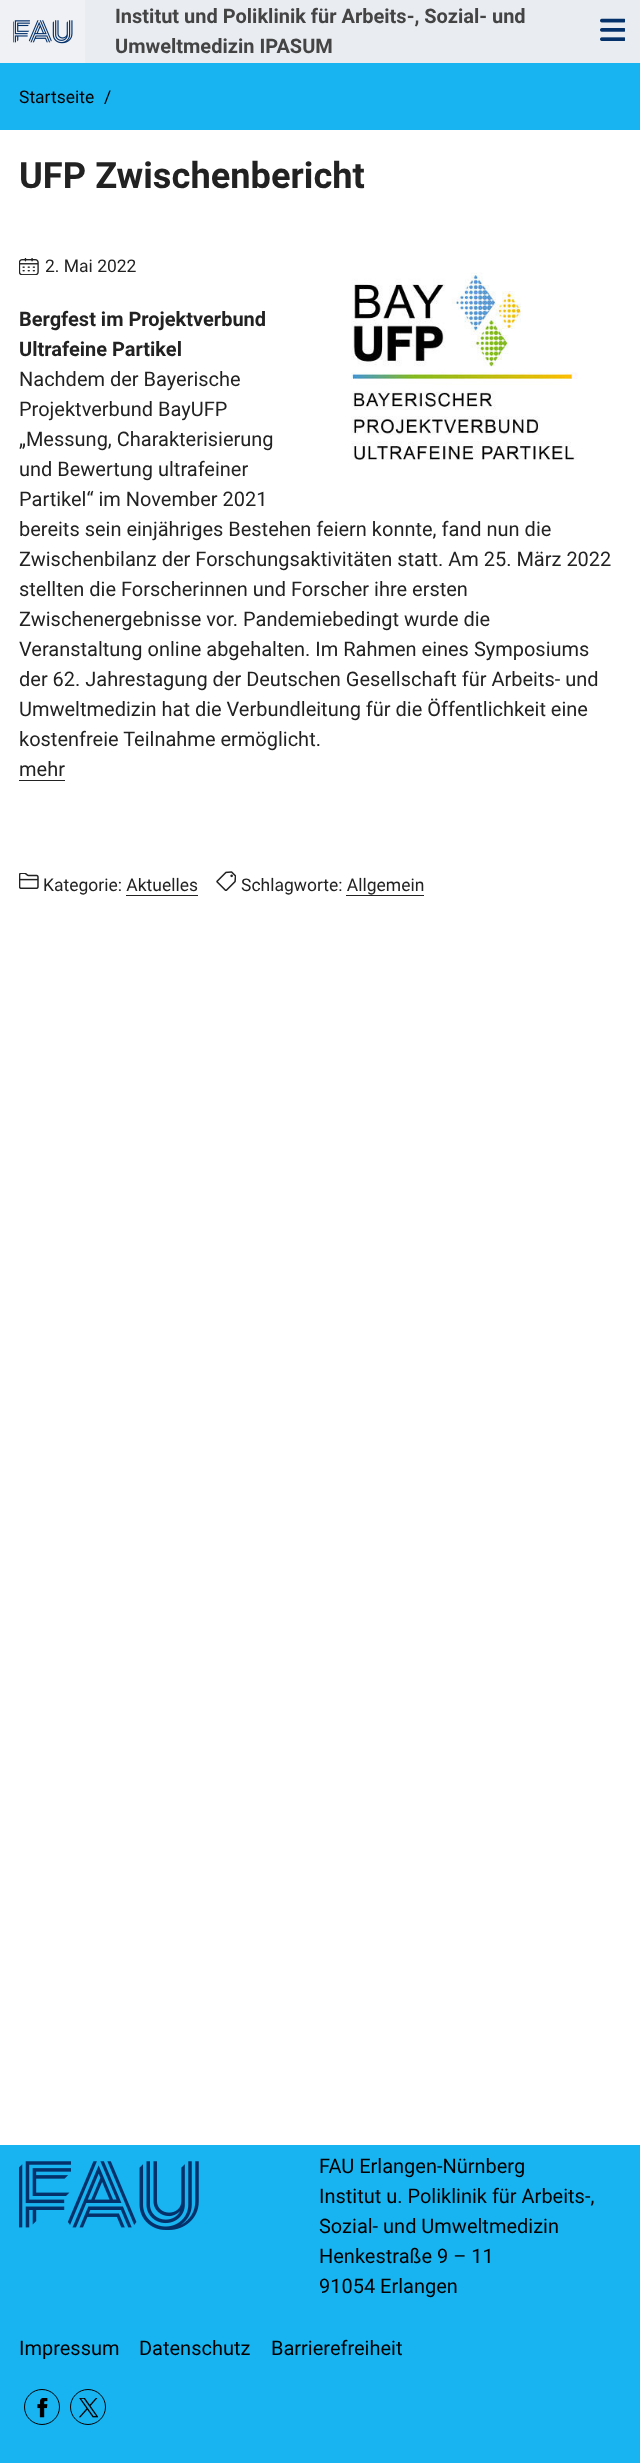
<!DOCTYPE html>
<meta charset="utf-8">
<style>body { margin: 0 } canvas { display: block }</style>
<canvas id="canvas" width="640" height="2463"></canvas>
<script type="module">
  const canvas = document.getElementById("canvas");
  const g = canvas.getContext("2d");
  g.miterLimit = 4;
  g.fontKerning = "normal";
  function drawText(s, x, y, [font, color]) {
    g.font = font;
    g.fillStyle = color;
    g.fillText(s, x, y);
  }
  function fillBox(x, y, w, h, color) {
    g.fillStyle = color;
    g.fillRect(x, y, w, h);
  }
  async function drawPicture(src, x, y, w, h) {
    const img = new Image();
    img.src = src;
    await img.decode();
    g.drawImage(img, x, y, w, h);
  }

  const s1 = ["bold 20px Roboto", "#444444"];
  const s2 = ["17.5px Roboto", "#000000"];
  const s3 = ["bold 36.25px Roboto", "#222222"];
  const s4 = ["17.5px Roboto", "#222222"];
  const s5 = ["bold 20px Roboto", "#222222"];
  const s6 = ["20px Roboto", "#222222"];
  const s7 = ["20px Roboto", "#000000"];

  fillBox(0, 0, 640, 2463, "#FFFFFF");
  fillBox(85, 0, 555, 63, "#E9EDF2");
  fillBox(0, 0, 85, 63, "#EFF1F4");
  await drawPicture("pic1.png", 13, 20, 60, 24);
  drawText("Institut und Poliklinik für Arbeits-, Sozial- und", 115, 23, s1);
  drawText("Umweltmedizin IPASUM", 115, 53, s1);
  await drawPicture("pic2.png", 600, 18, 25, 23);
  fillBox(0, 63, 640, 67, "#18B4F1");
  drawText("Startseite", 19, 103, s2);
  drawText("/", 104, 103, s2);
  drawText("UFP Zwischenbericht", 19, 188, s3);
  await drawPicture("pic3.png", 19, 258, 20, 17);
  drawText("2. Mai 2022", 45, 272, s4);
  await drawPicture("pic4.png", 351, 272, 227, 188);
  drawText("Bergfest im Projektverbund", 19, 326, s5);
  drawText("Ultrafeine Partikel", 19, 356, s5);
  drawText("Nachdem der Bayerische", 19, 386, s6);
  drawText("Projektverbund BayUFP", 19, 416, s6);
  drawText("„Messung, Charakterisierung", 19, 446, s6);
  drawText("und Bewertung ultrafeiner", 19, 476, s6);
  drawText("Partikel“ im November 2021", 19, 506, s6);
  drawText("bereits sein einjähriges Bestehen feiern konnte, fand nun die", 19, 536, s6);
  drawText("Zwischenbilanz der Forschungsaktivitäten statt. Am 25. März 2022", 19, 566, s6);
  drawText("stellten die Forscherinnen und Forscher ihre ersten", 19, 596, s6);
  drawText("Zwischenergebnisse vor. Pandemiebedingt wurde die", 19, 626, s6);
  drawText("Veranstaltung online abgehalten. Im Rahmen eines Symposiums", 19, 656, s6);
  drawText("der 62. Jahrestagung der Deutschen Gesellschaft für Arbeits- und", 19, 686, s6);
  drawText("Umweltmedizin hat die Verbundleitung für die Öffentlichkeit eine", 19, 716, s6);
  drawText("kostenfreie Teilnahme ermöglicht.", 19, 746, s6);
  drawText("mehr", 19, 776, s6);
  fillBox(19, 780, 46, 1, "#222222");
  await drawPicture("pic5.png", 19, 873, 20, 16);
  drawText("Kategorie: Aktuelles", 43, 891, s4);
  fillBox(126, 895, 72, 1, "#222222");
  await drawPicture("pic6.png", 216, 871, 20, 20);
  drawText("Schlagworte: Allgemein", 241, 891, s4);
  fillBox(346, 895, 78, 1, "#222222");
  fillBox(0, 2145, 640, 318, "#18B4F1");
  await drawPicture("pic7.png", 19, 2161, 180, 69);
  drawText("FAU Erlangen-Nürnberg", 319, 2173, s7);
  drawText("Institut u. Poliklinik für Arbeits-,", 319, 2203, s7);
  drawText("Sozial- und Umweltmedizin", 319, 2233, s7);
  drawText("Henkestraße 9 – 11", 319, 2263, s7);
  drawText("91054 Erlangen", 319, 2293, s7);
  drawText("Impressum", 19, 2355, s7);
  drawText("Datenschutz", 139, 2355, s7);
  drawText("Barrierefreiheit", 271, 2355, s7);
  g.beginPath();
  g.arc(42, 2407, 17.5, 0, Math.PI * 2);
  g.strokeStyle = "#000000";
  g.stroke();
  await drawPicture("pic8.png", 37, 2398, 11, 20);
  g.beginPath();
  g.arc(88, 2407, 17.5, 0, Math.PI * 2);
  g.stroke();
  await drawPicture("pic9.png", 79, 2398, 19, 20);
</script>
